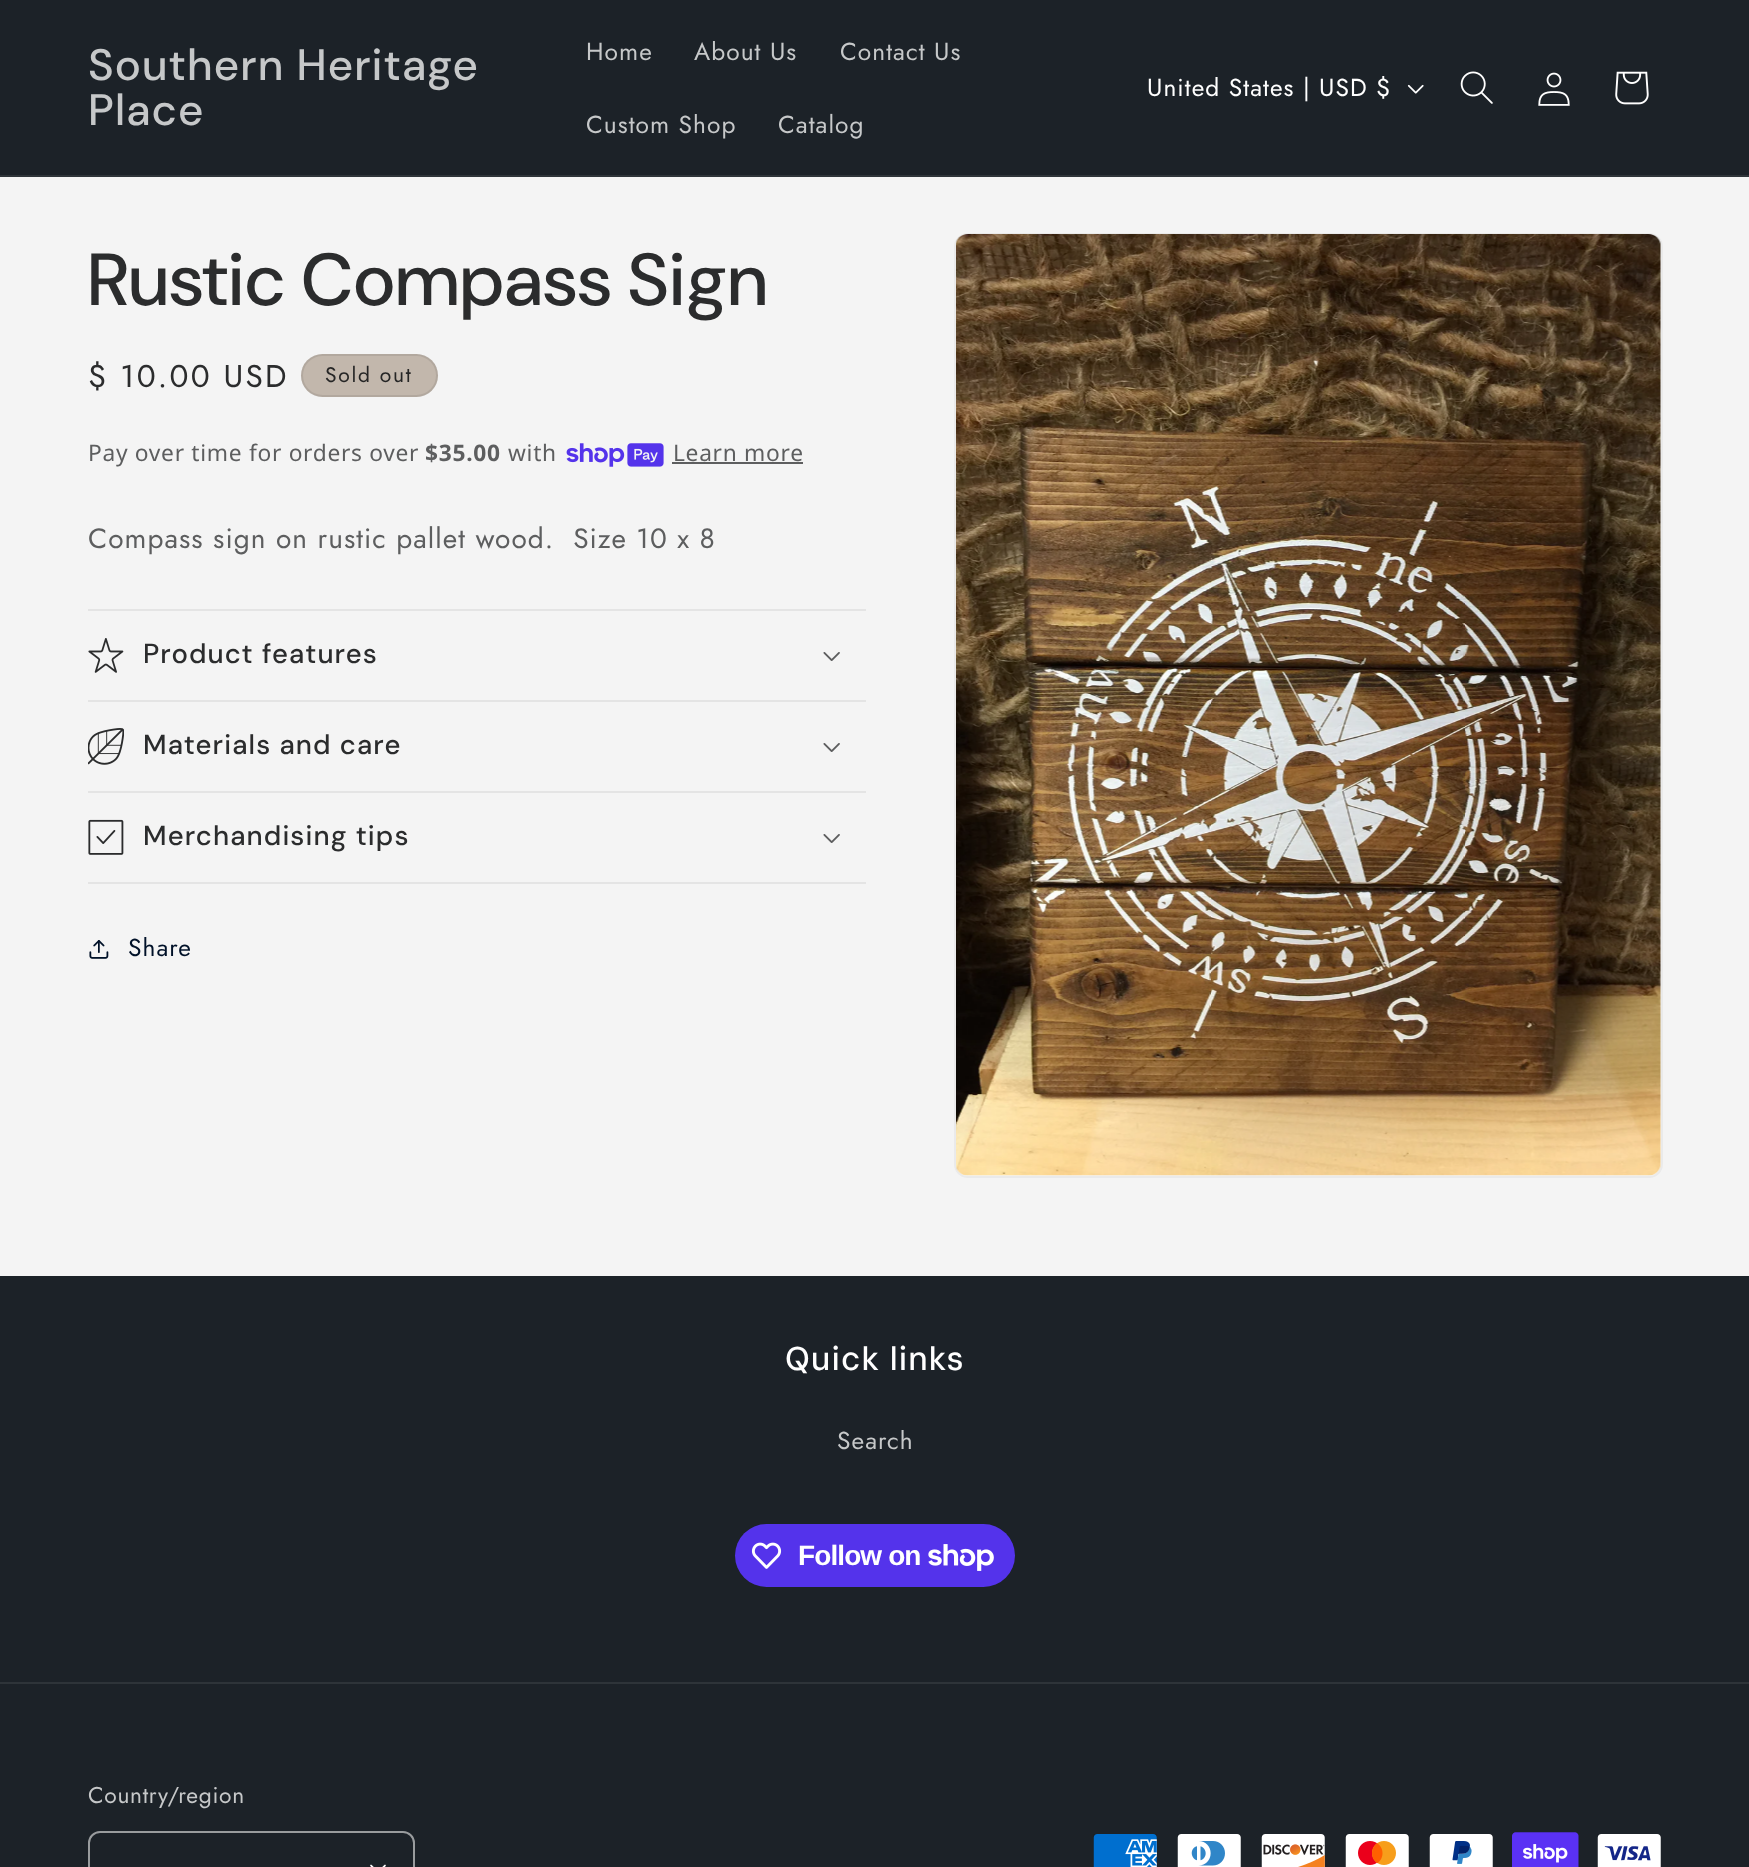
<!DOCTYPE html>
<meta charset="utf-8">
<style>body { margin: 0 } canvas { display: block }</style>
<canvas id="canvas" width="1749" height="1867"></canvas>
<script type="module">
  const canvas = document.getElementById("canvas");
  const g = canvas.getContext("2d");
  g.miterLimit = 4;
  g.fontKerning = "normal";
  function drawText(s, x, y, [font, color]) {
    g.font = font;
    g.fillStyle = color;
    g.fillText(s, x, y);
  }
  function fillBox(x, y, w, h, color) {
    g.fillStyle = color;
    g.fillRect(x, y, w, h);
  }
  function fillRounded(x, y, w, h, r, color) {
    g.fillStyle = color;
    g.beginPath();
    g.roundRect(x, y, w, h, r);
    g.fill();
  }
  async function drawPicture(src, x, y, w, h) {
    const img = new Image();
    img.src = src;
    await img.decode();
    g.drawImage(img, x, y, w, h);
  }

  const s1 = ["500 44px 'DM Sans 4'", "#C6C8C9"];
  const s2 = ["24.5px Jost", "#C6C8C9"];
  const s3 = ["24.5px Jost", "#FFFFFF"];
  const s4 = ["500 73.5px DM Sans", "#2B2C2D"];
  const s5 = ["31.5px Jost", "#2B2C2D"];
  const s6 = ["21px Jost", "#262626"];
  const s7 = ["22.75px Noto Sans", "#5D5E5F"];
  const s8 = ["bold 22.75px Noto Sans", "#5D5E5F"];
  const s9 = ["28px Jost", "#5D5E5F"];
  const s10 = ["500 27.5px 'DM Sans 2'", "#2B2C2D"];
  const s11 = ["24.5px Jost", "#001128"];
  const s12 = ["500 33px 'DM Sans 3'", "#FFFFFF"];
  const s13 = ["bold 28px Liberation Sans", "#FFFFFF"];
  const s14 = ["22.75px Jost", "#C6C8C9"];

  fillBox(0, 0, 1749, 1867, "#F4F4F4");
  fillBox(0, 0, 1749, 175, "#1C2228");
  fillBox(0, 175, 1749, 2, "#2E3439");
  g.letterSpacing = "1.1px";
  drawText("Southern Heritage", 88, 80, s1);
  drawText("Place", 88, 125, s1);
  g.letterSpacing = "1.05px";
  drawText("Home", 586, 60, s2);
  drawText("About Us", 694, 60, s2);
  drawText("Contact Us", 840, 60, s2);
  drawText("Custom Shop", 586, 133, s2);
  drawText("Catalog", 778, 133, s2);
  drawText("United States | USD $", 1147, 96, s3);
  await drawPicture("pic1.png", 1407, 84, 17, 10);
  await drawPicture("pic2.png", 1460, 71, 33, 33);
  await drawPicture("pic3.png", 1538, 72, 32, 34);
  await drawPicture("pic4.png", 1615, 71, 34, 34);
  g.letterSpacing = "1.1px";
  drawText("Rustic Compass Sign", 88, 305, s4);
  g.letterSpacing = "2.25px";
  drawText("$ 10.00 USD", 88, 387, s5);
  fillRounded(301, 354, 137, 43, 21.5, "#C2B7AC");
  g.beginPath();
  g.roundRect(302, 355, 135, 41, 20.5);
  g.strokeStyle = "rgba(38, 38, 38, 0.1)";
  g.lineWidth = 2;
  g.stroke();
  g.letterSpacing = "1.75px";
  drawText("Sold out", 325, 382, s6);
  g.letterSpacing = "0.7px";
  drawText("Pay over time for orders over", 88, 461, s7);
  drawText("$35.00", 425, 461, s8);
  drawText("with", 508, 461, s7);
  await drawPicture("pic5.png", 566, 443, 98, 24);
  drawText("Learn more", 673, 461, s7);
  fillBox(672, 462, 131, 2, "#5D5E5F");
  g.letterSpacing = "1.05px";
  drawText("Compass sign on rustic pallet wood.  Size 10 x 8", 88, 548, s9);
  fillBox(88, 609, 778, 2, "#E4E4E4");
  fillBox(88, 700, 778, 2, "#E4E4E4");
  await drawPicture("pic6.png", 88, 638, 36, 35);
  g.letterSpacing = "1.1px";
  drawText("Product features", 143, 663, s10);
  await drawPicture("pic7.png", 823, 652, 17, 9);
  fillBox(88, 791, 778, 2, "#E4E4E4");
  await drawPicture("pic8.png", 88, 728, 36, 37);
  drawText("Materials and care", 143, 754, s10);
  await drawPicture("pic7.png", 823, 743, 17, 9);
  fillBox(88, 882, 778, 2, "#E4E4E4");
  await drawPicture("pic9.png", 88, 819, 36, 36);
  drawText("Merchandising tips", 143, 845, s10);
  await drawPicture("pic7.png", 823, 834, 17, 9);
  await drawPicture("pic10.png", 89, 940, 20, 19);
  g.letterSpacing = "1.05px";
  drawText("Share", 128, 956, s11);
  g.beginPath();
  g.roundRect(955, 234, 707, 943, 13);
  g.strokeStyle = "#EAEAEA";
  g.stroke();
  await drawPicture("pic11.png", 956, 234, 705, 942);
  fillBox(0, 1276, 1749, 591, "#1C2228");
  g.letterSpacing = "1.1px";
  drawText("Quick links", 785, 1370, s12);
  g.letterSpacing = "1.05px";
  drawText("Search", 837, 1449, s2);
  fillRounded(735, 1524, 280, 63, 31.5, "#5433EB");
  await drawPicture("pic12.png", 751, 1542, 31, 27);
  g.letterSpacing = "-0.9px";
  drawText("Follow on", 798, 1565, s13);
  await drawPicture("pic13.png", 928, 1544, 66, 27);
  fillBox(0, 1682, 1749, 2, "#2E3439");
  g.letterSpacing = "0.7px";
  drawText("Country/region", 88, 1803, s14);
  await drawPicture("pic14.png", 370, 1864, 16, 3);
  g.beginPath();
  g.roundRect(89, 1832, 325, 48, 11);
  g.strokeStyle = "#999C9E";
  g.stroke();
  await drawPicture("pic15.png", 1093, 1834, 64, 33);
  await drawPicture("pic16.png", 1177, 1834, 64, 33);
  await drawPicture("pic17.png", 1261, 1834, 64, 33);
  await drawPicture("pic18.png", 1345, 1834, 64, 33);
  await drawPicture("pic19.png", 1429, 1834, 64, 33);
  await drawPicture("pic20.png", 1512, 1832, 67, 35);
  await drawPicture("pic21.png", 1597, 1834, 64, 33);
</script>
